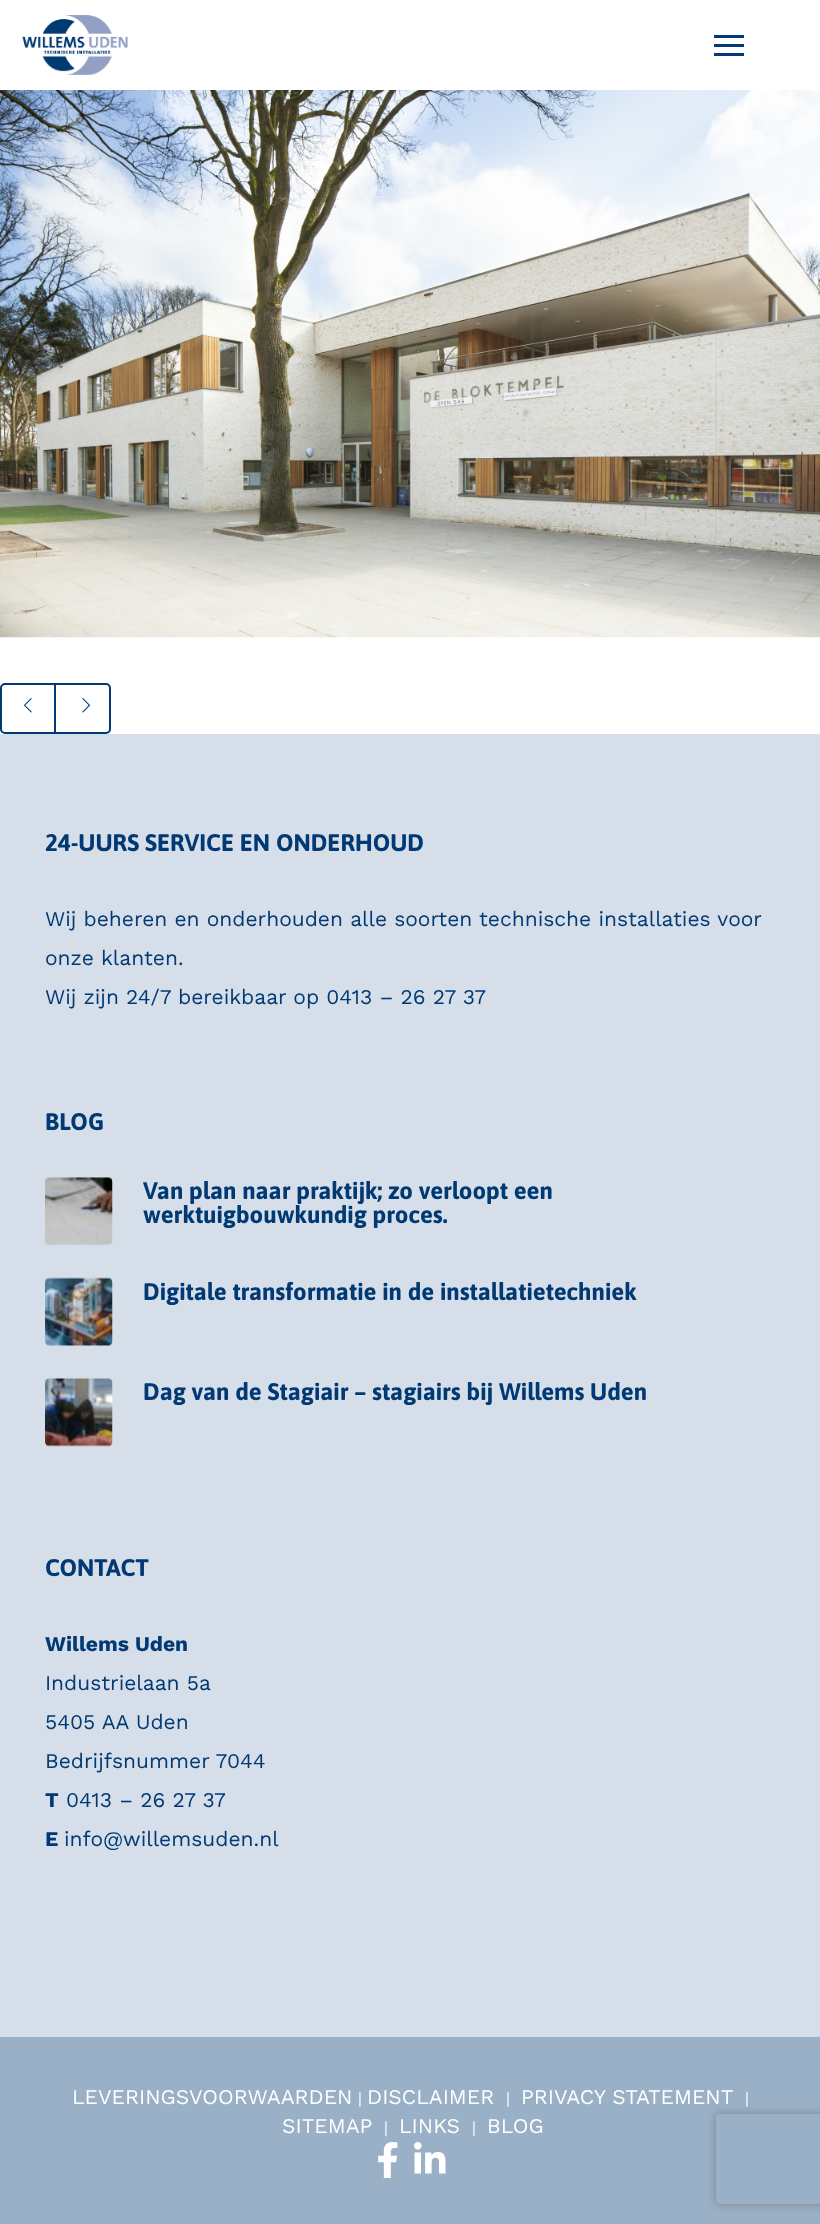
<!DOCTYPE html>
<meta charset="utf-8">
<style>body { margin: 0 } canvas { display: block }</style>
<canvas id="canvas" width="820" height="2224"></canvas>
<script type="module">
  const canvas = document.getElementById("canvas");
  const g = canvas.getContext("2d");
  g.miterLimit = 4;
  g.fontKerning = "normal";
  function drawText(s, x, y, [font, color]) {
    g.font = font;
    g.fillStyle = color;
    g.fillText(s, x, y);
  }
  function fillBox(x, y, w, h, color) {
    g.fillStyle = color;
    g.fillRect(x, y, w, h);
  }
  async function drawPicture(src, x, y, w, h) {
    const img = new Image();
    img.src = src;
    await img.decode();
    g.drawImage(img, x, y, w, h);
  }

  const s1 = ["bold 24px Asap", "#003973"];
  const s2 = ["21px Work Sans", "#003973"];
  const s3 = ["bold 21px Work Sans", "#003973"];
  const s4 = ["21px Work Sans", "#FFFFFF"];
  const s5 = ["16px Work Sans", "#FFFFFF"];

  fillBox(0, 0, 820, 2224, "#FFFFFF");
  await drawPicture("pic1.png", 22, 15, 106, 60);
  fillBox(714, 44, 30, 3, "#003973");
  fillBox(714, 35, 30, 3, "#003973");
  fillBox(714, 53, 30, 3, "#003973");
  await drawPicture("pic2.png", 0, 90, 820, 548);
  g.beginPath();
  g.roundRect(1, 684, 109, 49, 4);
  g.strokeStyle = "#003973";
  g.lineWidth = 2;
  g.stroke();
  fillBox(54, 684, 2, 48, "#003973");
  await drawPicture("pic3.png", 23, 698, 9, 15);
  await drawPicture("pic4.png", 82, 698, 9, 15);
  fillBox(0, 734, 820, 1303, "#D6DFE9");
  drawText("24-UURS SERVICE EN ONDERHOUD", 45, 851, s1);
  drawText("Wij beheren en onderhouden alle soorten technische installaties voor", 45, 926, s2);
  drawText("onze klanten.", 45, 965, s2);
  drawText("Wij zijn 24/7 bereikbaar op 0413 – 26 27 37", 45, 1004, s2);
  drawText("BLOG", 45, 1130, s1);
  await drawPicture("pic5.png", 45, 1177, 68, 69);
  drawText("Van plan naar praktijk; zo verloopt een", 143, 1199, s1);
  drawText("werktuigbouwkundig proces.", 143, 1223, s1);
  await drawPicture("pic6.png", 45, 1277, 68, 69);
  drawText("Digitale transformatie in de installatietechniek", 143, 1300, s1);
  await drawPicture("pic7.png", 45, 1378, 68, 69);
  drawText("Dag van de Stagiair – stagiairs bij Willems Uden", 143, 1400, s1);
  drawText("CONTACT", 45, 1576, s1);
  drawText("Willems Uden", 45, 1651, s3);
  drawText("Industrielaan 5a", 45, 1690, s2);
  drawText("5405 AA Uden", 45, 1729, s2);
  drawText("Bedrijfsnummer 7044", 45, 1768, s2);
  drawText("T", 45, 1807, s3);
  drawText("0413 – 26 27 37", 66, 1807, s2);
  drawText("E", 45, 1846, s3);
  drawText("info@willemsuden.nl", 64, 1846, s2);
  fillBox(0, 2037, 820, 187, "#99B0C7");
  drawText("LEVERINGSVOORWAARDEN", 72, 2104, s4);
  drawText("|", 358, 2104, s5);
  drawText("DISCLAIMER", 367, 2104, s4);
  drawText("|", 506, 2104, s5);
  drawText("PRIVACY STATEMENT", 521, 2104, s4);
  drawText("|", 745, 2104, s5);
  drawText("SITEMAP", 282, 2133, s4);
  drawText("|", 384, 2133, s5);
  drawText("LINKS", 399, 2133, s4);
  drawText("|", 472, 2133, s5);
  drawText("BLOG", 487, 2133, s4);
  await drawPicture("pic8.png", 378, 2142, 20, 36);
  await drawPicture("pic9.png", 414, 2142, 32, 32);
  g.save();
  g.beginPath();
  g.moveTo(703, 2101);
  g.lineTo(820, 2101);
  g.lineTo(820, 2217);
  g.lineTo(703, 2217);
  g.closePath();
  g.moveTo(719, 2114);
  g.lineTo(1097, 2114);
  g.bezierCurveTo(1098.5, 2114, 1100, 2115.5, 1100, 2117);
  g.lineTo(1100, 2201);
  g.bezierCurveTo(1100, 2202.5, 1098.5, 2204, 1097, 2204);
  g.lineTo(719, 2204);
  g.bezierCurveTo(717.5, 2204, 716, 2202.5, 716, 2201);
  g.lineTo(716, 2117);
  g.bezierCurveTo(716, 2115.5, 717.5, 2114, 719, 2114);
  g.closePath();
  g.clip("evenodd");
  g.fillStyle = "#808080";
  g.filter = "blur(4px)";
  g.beginPath();
  g.roundRect(716, 2114, 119, 90, 3);
  g.fill();
  g.filter = "none";
  g.restore();
</script>
